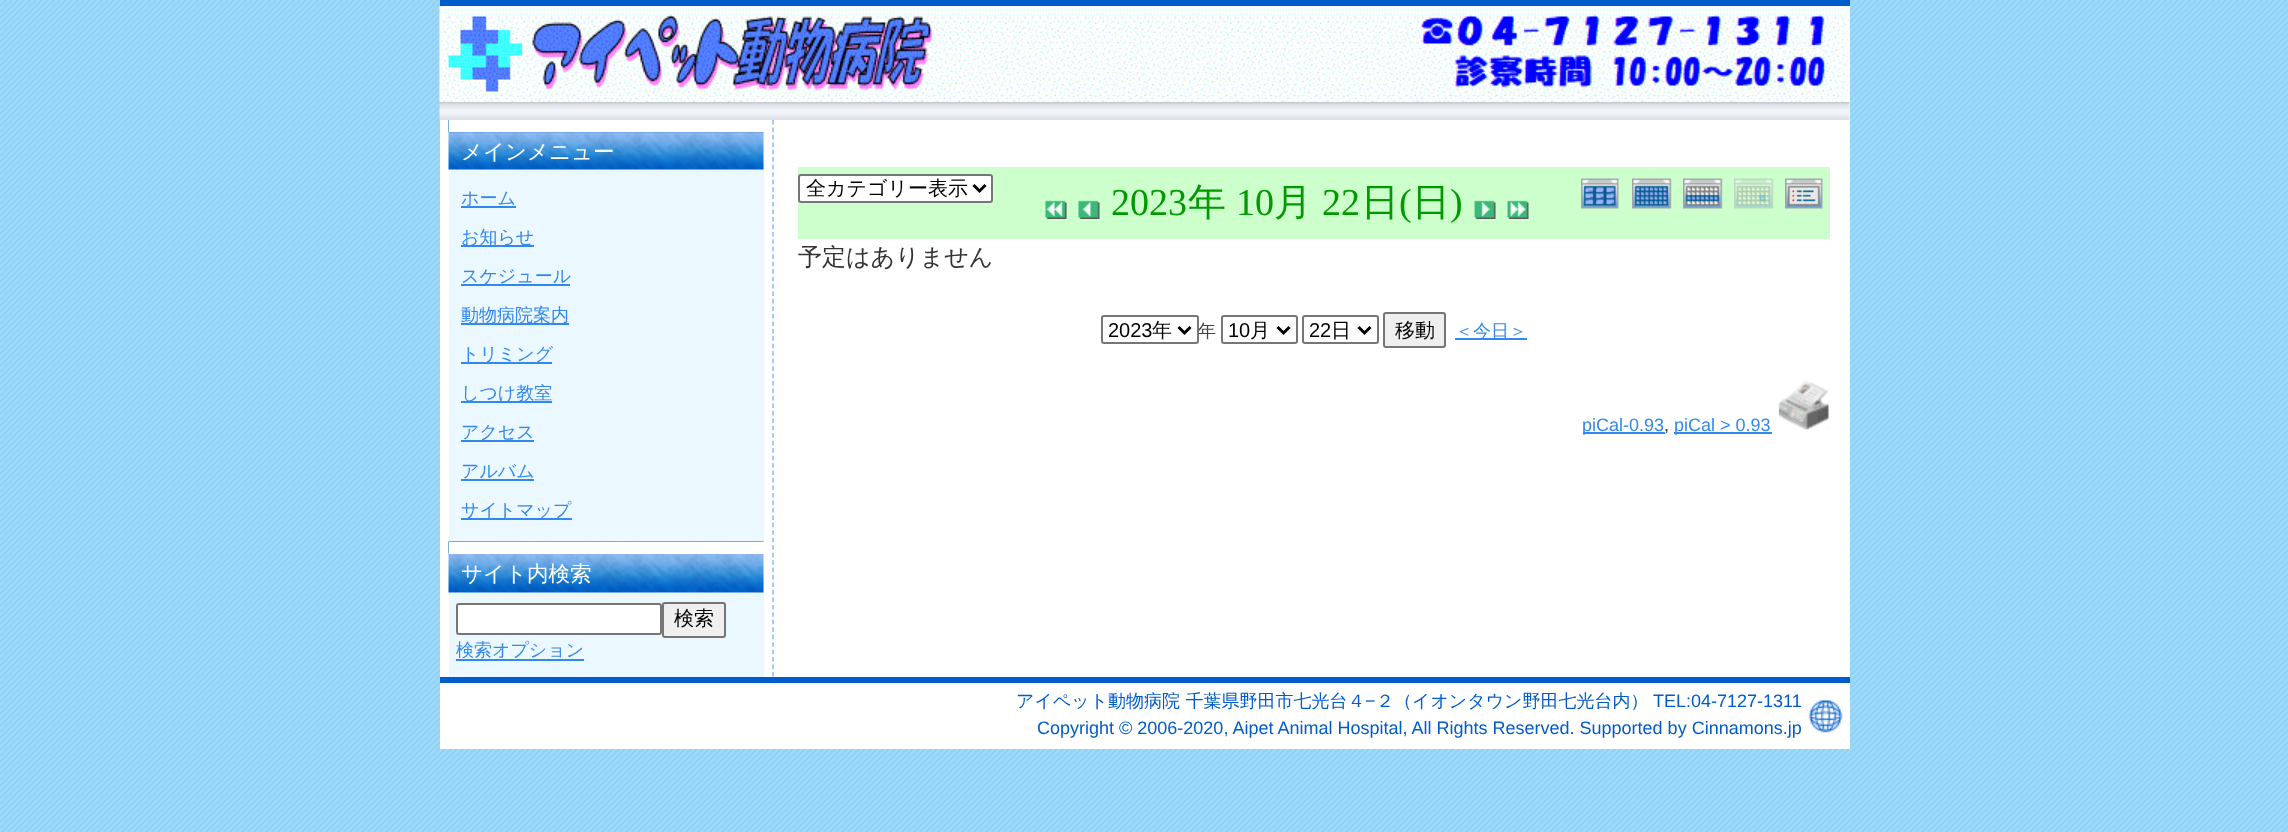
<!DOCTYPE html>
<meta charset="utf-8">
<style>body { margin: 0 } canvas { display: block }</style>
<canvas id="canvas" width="2288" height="832"></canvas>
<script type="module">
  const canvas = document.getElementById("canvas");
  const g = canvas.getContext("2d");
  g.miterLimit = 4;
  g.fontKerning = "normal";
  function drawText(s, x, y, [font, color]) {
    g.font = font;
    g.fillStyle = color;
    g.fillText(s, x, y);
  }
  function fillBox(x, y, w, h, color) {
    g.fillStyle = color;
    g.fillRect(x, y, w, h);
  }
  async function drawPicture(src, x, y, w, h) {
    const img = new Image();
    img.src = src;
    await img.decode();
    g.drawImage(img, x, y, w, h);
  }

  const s1 = ["500 21.5px WenQuanYi Zen Hei", "#FFFFFF"];
  const s2 = ["500 18px WenQuanYi Zen Hei", "#3388EE"];
  const s3 = ["500 20px WenQuanYi Zen Hei", "#000000"];
  const s4 = ["38px Liberation Serif", "#009900"];
  const s5 = ["500 38px WenQuanYi Zen Hei", "#009900"];
  const s6 = ["500 24px WenQuanYi Zen Hei", "#333333"];
  const s7 = ["20px Liberation Sans", "#000000"];
  const s8 = ["500 18px WenQuanYi Zen Hei", "#444444"];
  const s9 = ["18px Liberation Sans", "#3388EE"];
  const s10 = ["18px Liberation Sans", "#333333"];
  const s11 = ["500 18px WenQuanYi Zen Hei", "#005CCA"];
  const s12 = ["18px Liberation Sans", "#005CCA"];

  fillBox(0, 0, 2288, 832, "#FFFFFF");
  await drawPicture("pic1.png", 0, 0, 2288, 832);
  fillBox(440, 6, 1410, 743, "#FFFFFF");
  fillBox(440, 0, 1410, 6, "#005CCA");
  await drawPicture("pic2.png", 439, 6, 1411, 96);
  await drawPicture("pic3.png", 439, 102, 1411, 18);
  g.beginPath();
  g.moveTo(773, 120);
  g.lineTo(773, 676.5);
  g.strokeStyle = "#81BAFF";
  g.lineWidth = 1.5;
  g.setLineDash([4.5, 2.96]);
  g.stroke();
  fillBox(449, 132, 315, 410, "#ECF8FF");
  await drawPicture("pic4.png", 448, 120, 316, 50);
  fillBox(449, 120, 315, 12, "#FFFFFF");
  drawText("メインメニュー", 461, 159, s1);
  drawText("ホーム", 461, 204, s2);
  fillBox(461, 206, 55, 2, "#3388EE");
  fillBox(461, 245, 73, 2, "#3388EE");
  drawText("お知らせ", 461, 243, s2);
  fillBox(461, 284, 109, 2, "#3388EE");
  drawText("スケジュール", 461, 282, s2);
  fillBox(461, 323, 108, 2, "#3388EE");
  drawText("動物病院案内", 461, 321, s2);
  fillBox(461, 362, 91, 2, "#3388EE");
  drawText("トリミング", 461, 360, s2);
  fillBox(461, 401, 91, 2, "#3388EE");
  drawText("しつけ教室", 461, 399, s2);
  fillBox(461, 440, 73, 2, "#3388EE");
  drawText("アクセス", 461, 438, s2);
  drawText("アルバム", 461, 477, s2);
  fillBox(461, 479, 73, 2, "#3388EE");
  fillBox(461, 518, 111, 2, "#3388EE");
  drawText("サイトマップ", 461, 516, s2);
  fillBox(449, 554, 315, 123, "#ECF8FF");
  await drawPicture("pic5.png", 448, 541, 316, 52);
  fillBox(449, 542, 315, 12, "#FFFFFF");
  drawText("サイト内検索", 461, 581, s1);
  g.beginPath();
  g.roundRect(457, 604, 204, 30, 2);
  g.fill();
  g.strokeStyle = "#767676";
  g.lineWidth = 2;
  g.setLineDash([]);
  g.stroke();
  g.fillStyle = "#EFEFEF";
  g.beginPath();
  g.roundRect(663, 603, 62, 34, 2);
  g.fill();
  g.stroke();
  drawText("検索", 674, 625, s3);
  drawText("検索オプション", 456, 656, s2);
  fillBox(456, 659, 128, 2, "#3388EE");
  fillBox(798, 167, 1032, 72, "#CCFFCC");
  g.fillStyle = "#FFFFFF";
  g.beginPath();
  g.roundRect(799, 175, 193, 27, 2);
  g.fill();
  g.stroke();
  g.beginPath();
  g.moveTo(973.5, 185);
  g.lineTo(979.5, 191);
  g.lineTo(985.5, 185);
  g.strokeStyle = "#000000";
  g.lineWidth = 3;
  g.stroke();
  drawText("全カテゴリー表示", 806, 195, s3);
  await drawPicture("pic6.png", 1045, 200, 22, 19);
  await drawPicture("pic7.png", 1078, 200, 22, 19);
  drawText("2023", 1111, 215, s4);
  drawText("年", 1188, 215, s5);
  drawText("10", 1236, 215, s4);
  drawText("月", 1274, 215, s5);
  drawText("22", 1322, 215, s4);
  drawText("日", 1361, 215, s5);
  drawText("(", 1399, 215, s4);
  drawText("日", 1412, 215, s5);
  drawText(")", 1450, 215, s4);
  await drawPicture("pic8.png", 1474, 200, 22, 19);
  await drawPicture("pic9.png", 1507, 200, 22, 19);
  await drawPicture("pic10.png", 1581, 178, 38, 31);
  await drawPicture("pic11.png", 1632, 178, 40, 31);
  await drawPicture("pic12.png", 1683, 178, 40, 31);
  await drawPicture("pic13.png", 1734, 178, 40, 31);
  await drawPicture("pic14.png", 1785, 178, 38, 31);
  drawText("予定はありません", 798, 265, s6);
  g.beginPath();
  g.roundRect(1102, 316, 96, 27, 2);
  g.strokeStyle = "#767676";
  g.lineWidth = 2;
  g.stroke();
  g.beginPath();
  g.moveTo(1178.5, 327);
  g.lineTo(1184.5, 333);
  g.lineTo(1190.5, 327);
  g.strokeStyle = "#000000";
  g.lineWidth = 3;
  g.stroke();
  drawText("2023", 1108, 337, s7);
  drawText("年", 1152, 337, s3);
  drawText("年", 1198, 337, s8);
  g.beginPath();
  g.roundRect(1222, 316, 75, 27, 2);
  g.strokeStyle = "#767676";
  g.lineWidth = 2;
  g.stroke();
  g.beginPath();
  g.moveTo(1277.5, 327);
  g.lineTo(1283.5, 333);
  g.lineTo(1289.5, 327);
  g.strokeStyle = "#000000";
  g.lineWidth = 3;
  g.stroke();
  drawText("10", 1228, 337, s7);
  drawText("月", 1250, 337, s3);
  g.beginPath();
  g.roundRect(1303, 316, 75, 27, 2);
  g.strokeStyle = "#767676";
  g.lineWidth = 2;
  g.stroke();
  g.beginPath();
  g.moveTo(1358.5, 327);
  g.lineTo(1364.5, 333);
  g.lineTo(1370.5, 327);
  g.strokeStyle = "#000000";
  g.lineWidth = 3;
  g.stroke();
  drawText("22", 1309, 337, s7);
  drawText("日", 1331, 337, s3);
  g.fillStyle = "#EFEFEF";
  g.beginPath();
  g.roundRect(1384, 313, 61, 34, 2);
  g.fill();
  g.strokeStyle = "#767676";
  g.lineWidth = 2;
  g.stroke();
  drawText("移動", 1395, 337, s3);
  fillBox(1455, 338, 72, 2, "#3388EE");
  drawText("＜今日＞", 1455, 337, s2);
  fillBox(1583, 432, 82, 2, "#3388EE");
  drawText("piCal-0.93", 1582, 431, s9);
  drawText(",", 1664, 431, s10);
  fillBox(1674, 432, 98, 2, "#3388EE");
  drawText("piCal > 0.93", 1674, 431, s9);
  await drawPicture("pic15.png", 1778, 381, 51, 49);
  await drawPicture("pic16.png", 1808, 699, 35, 34);
  fillBox(440, 677, 1410, 6, "#005CCA");
  drawText("アイペット動物病院 千葉県野田市七光台４", 1016, 707, s11);
  drawText("−", 1365, 707, s12);
  drawText("２（イオンタウン野田七光台内）", 1376, 707, s11);
  drawText("TEL:04-7127-1311", 1653, 707, s12);
  drawText("Copyright © 2006-2020, Aipet Animal Hospital, All Rights Reserved. Supported by Cinnamons.jp", 1037, 734, s12);
</script>
